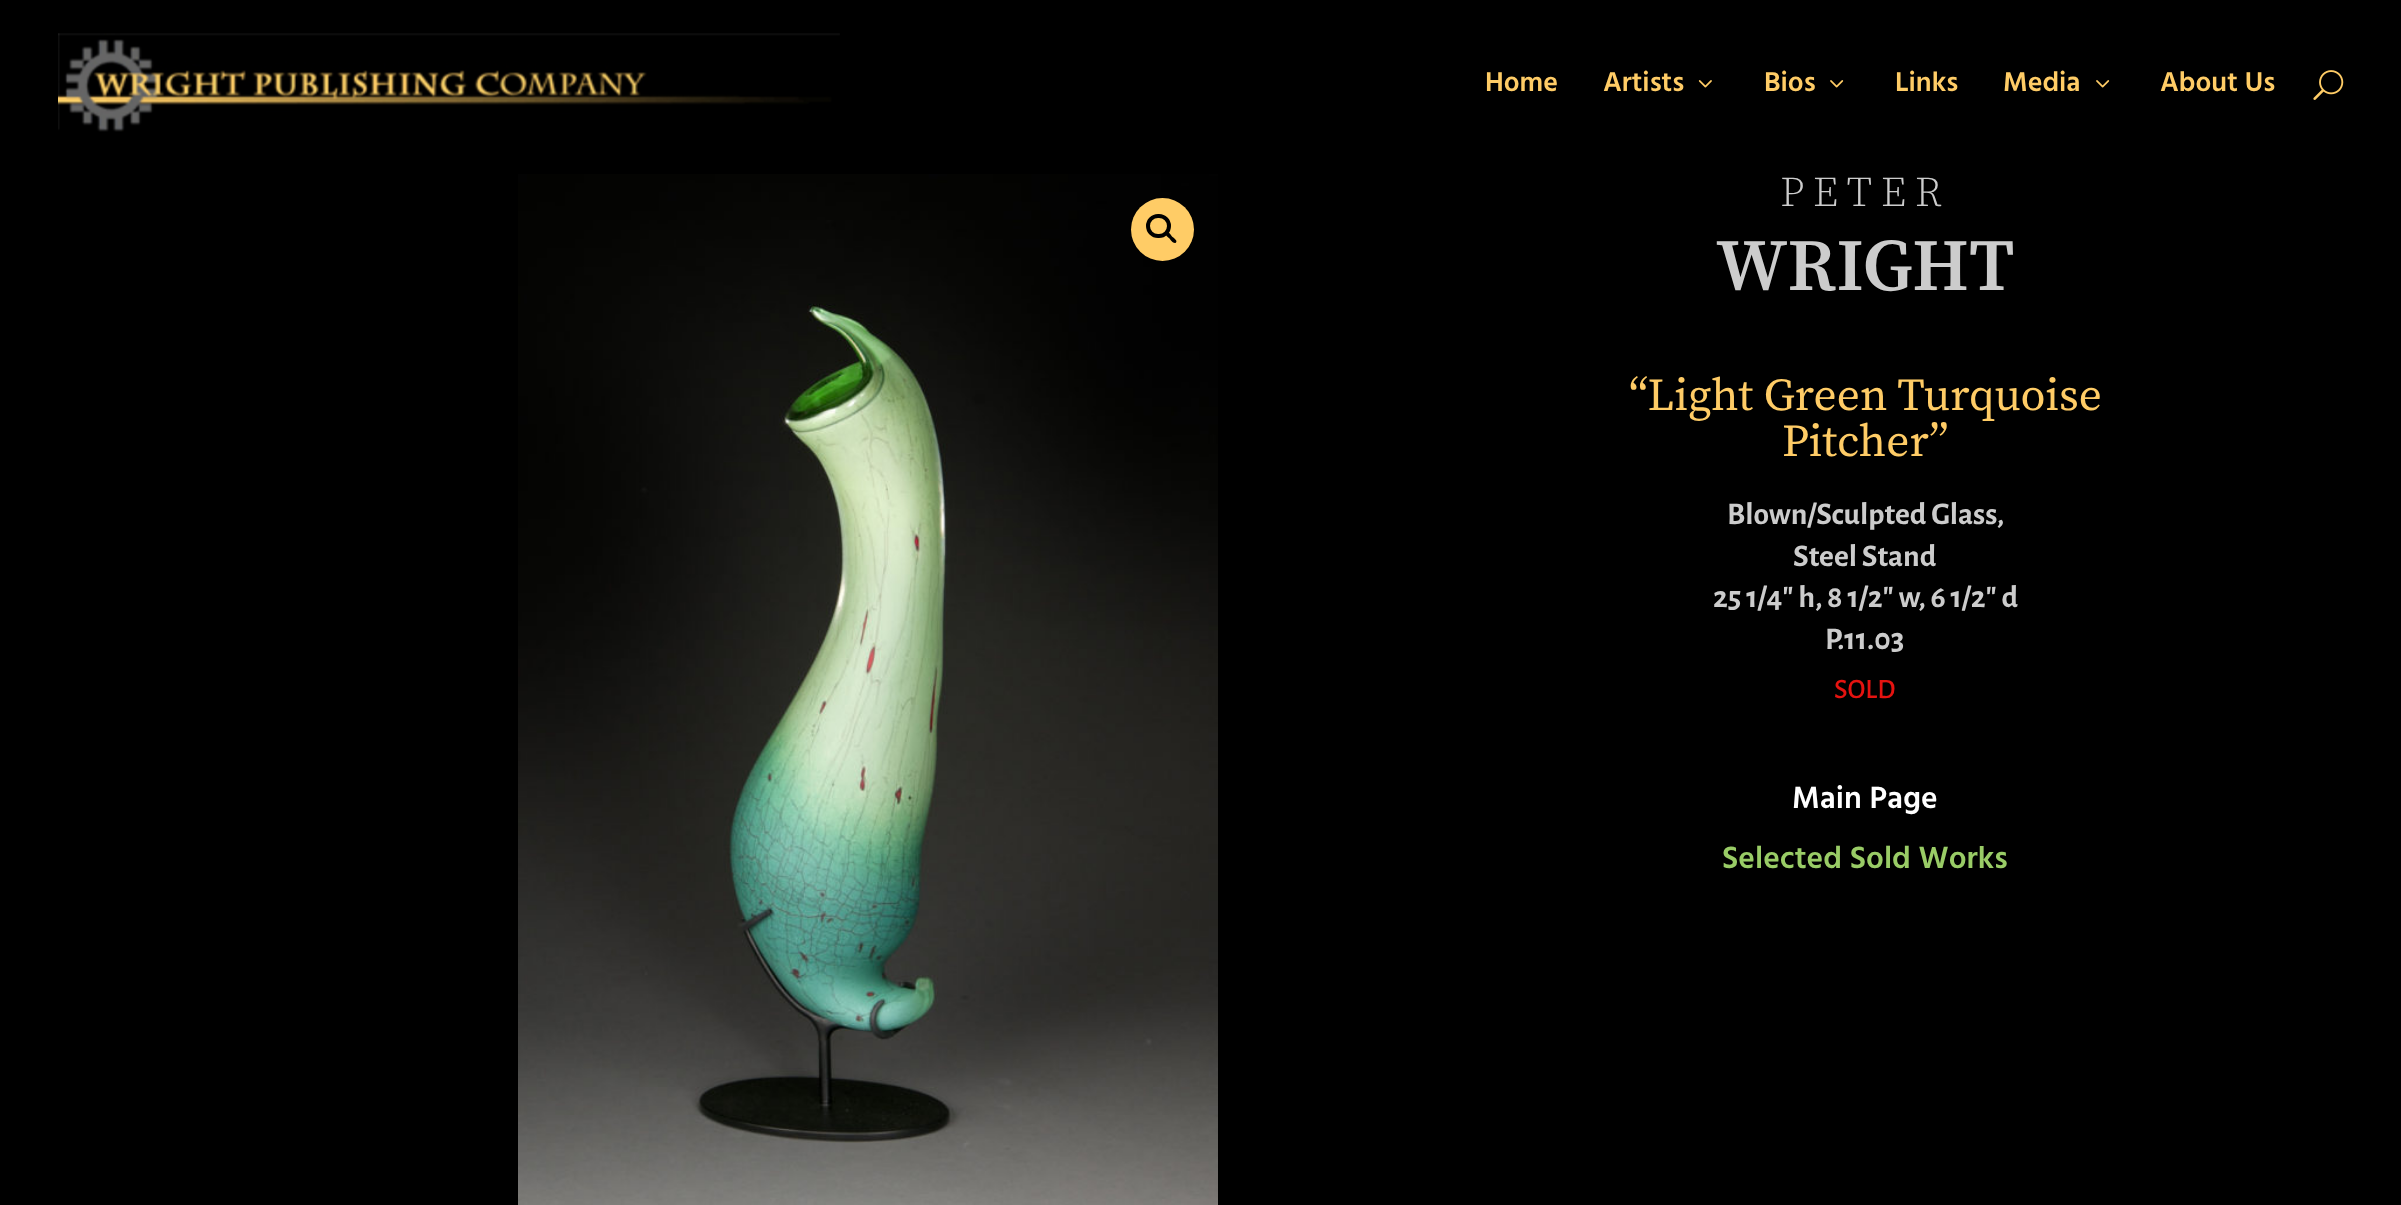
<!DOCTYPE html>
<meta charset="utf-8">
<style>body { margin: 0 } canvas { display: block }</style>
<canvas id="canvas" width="2401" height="1205"></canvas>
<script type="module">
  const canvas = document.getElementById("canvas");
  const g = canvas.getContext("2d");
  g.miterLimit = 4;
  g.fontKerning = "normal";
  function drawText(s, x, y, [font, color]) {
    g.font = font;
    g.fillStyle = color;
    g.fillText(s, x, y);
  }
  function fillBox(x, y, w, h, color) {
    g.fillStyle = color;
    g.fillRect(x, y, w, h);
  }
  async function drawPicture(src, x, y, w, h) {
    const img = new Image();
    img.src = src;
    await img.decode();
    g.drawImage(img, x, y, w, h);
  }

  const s1 = ["600 28px Hind Madurai", "#FFCC66"];
  const s2 = ["300 42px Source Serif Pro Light", "#CCCCCC"];
  const s3 = ["600 73.5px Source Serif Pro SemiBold", "#CCCCCC"];
  const s4 = ["45.5px Source Serif Pro", "#FFCC66"];
  const s5 = ["bold 31.5px Alegreya Sans", "#CCCCCC"];
  const s6 = ["500 28px Alegreya Sans", "#E51310"];
  const s7 = ["600 31.5px Hind Madurai", "#FFFFFF"];
  const s8 = ["600 31.5px Hind Madurai", "#99CC66"];

  fillBox(0, 0, 2401, 1205, "#000000");
  await drawPicture("pic1.png", 58, 33, 782, 99);
  drawText("Home", 1485, 91, s1);
  drawText("Artists", 1603, 91, s1);
  await drawPicture("pic2.png", 1698, 80, 14, 8);
  drawText("Bios", 1764, 91, s1);
  await drawPicture("pic3.png", 1830, 80, 14, 8);
  drawText("Links", 1895, 91, s1);
  drawText("Media", 2003, 91, s1);
  await drawPicture("pic3.png", 2096, 80, 14, 8);
  drawText("About Us", 2160, 91, s1);
  await drawPicture("pic4.png", 2313, 70, 31, 30);
  await drawPicture("pic5.png", 518, 174, 700, 1031);
  g.beginPath();
  g.arc(1162.5, 229.5, 31.5, 0, Math.PI * 2);
  g.fill();
  g.beginPath();
  g.roundRect(1148, 216, 21, 20, 10);
  g.strokeStyle = "#000000";
  g.lineWidth = 4;
  g.stroke();
  g.fillStyle = "#000000";
  g.beginPath();
  g.moveTo(1166, 232.5);
  g.bezierCurveTo(1168, 230.5, 1171, 235, 1172, 236.5);
  g.bezierCurveTo(1173, 237.5, 1178, 240.5, 1176, 242.5);
  g.bezierCurveTo(1174, 244.5, 1170.5, 240, 1169.5, 238.5);
  g.bezierCurveTo(1168.5, 237.5, 1164, 234.5, 1166, 232.5);
  g.closePath();
  g.fill();
  g.letterSpacing = "8.75px";
  drawText("PETER", 1780, 206, s2);
  g.letterSpacing = "0px";
  drawText("WRIGHT", 1716, 290, s3);
  drawText("“Light Green Turquoise", 1629, 410, s4);
  drawText("Pitcher”", 1782, 456, s4);
  drawText("Blown/Sculpted Glass,", 1727, 524, s5);
  drawText("Steel Stand", 1793, 566, s5);
  drawText("25 1/4″ h, 8 1/2″ w, 6 1/2″ d", 1713, 607, s5);
  drawText("P.11.03", 1825, 649, s5);
  drawText("SOLD", 1834, 698, s6);
  drawText("Main Page", 1792, 808, s7);
  drawText("Selected Sold Works", 1722, 868, s8);
</script>
